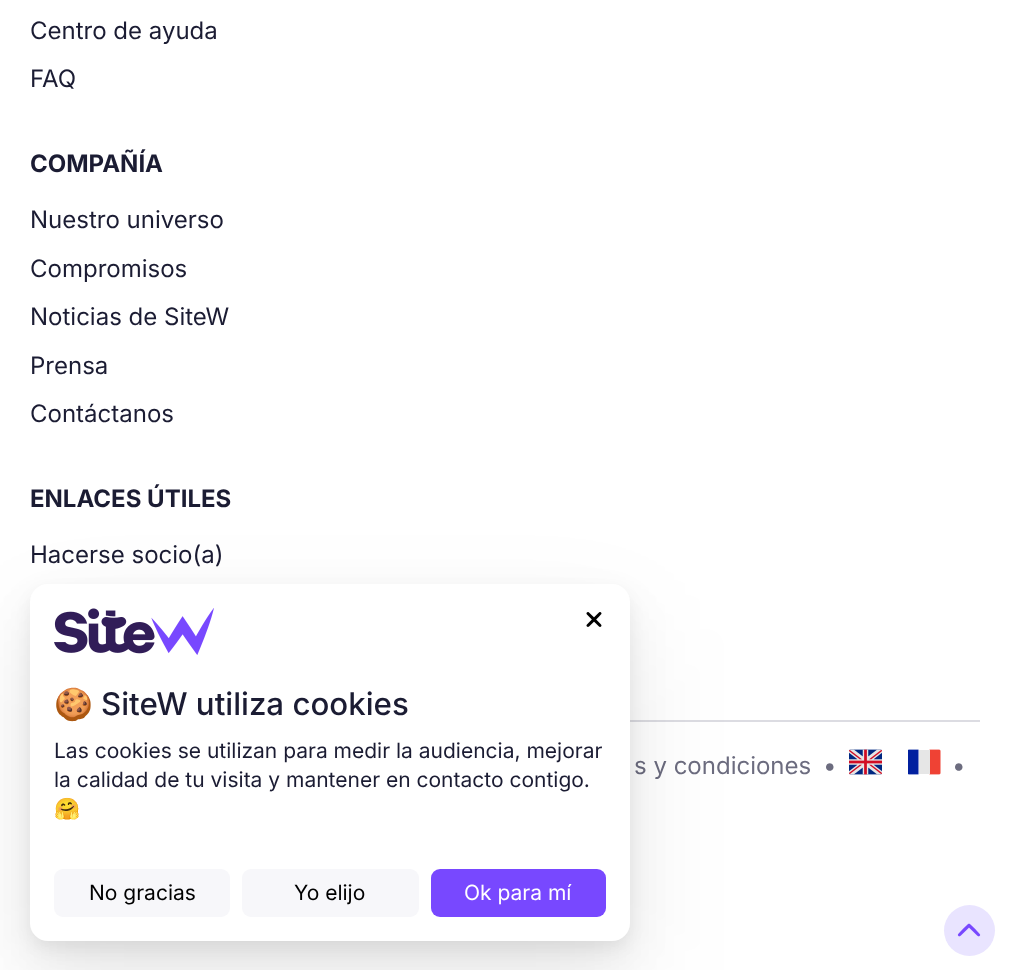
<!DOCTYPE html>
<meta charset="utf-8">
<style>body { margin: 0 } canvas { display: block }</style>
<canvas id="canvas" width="1009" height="970"></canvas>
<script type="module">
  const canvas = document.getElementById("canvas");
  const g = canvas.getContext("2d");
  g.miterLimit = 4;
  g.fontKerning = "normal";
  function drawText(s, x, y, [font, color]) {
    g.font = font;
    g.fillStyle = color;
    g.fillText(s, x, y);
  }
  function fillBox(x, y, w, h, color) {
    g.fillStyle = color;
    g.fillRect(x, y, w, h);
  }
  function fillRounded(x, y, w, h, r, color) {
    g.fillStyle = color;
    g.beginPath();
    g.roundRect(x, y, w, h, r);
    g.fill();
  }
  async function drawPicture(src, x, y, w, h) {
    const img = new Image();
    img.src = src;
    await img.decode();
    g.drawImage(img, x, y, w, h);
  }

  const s1 = ["24px Inter", "#1B1C33"];
  const s2 = ["bold 24px Inter", "#1B1C33"];
  const s3 = ["24px Inter", "#6C6C7F"];
  const s4 = ["31.25px Noto Color Emoji", "#1B1C33"];
  const s5 = ["500 31.25px Inter", "#1B1C33"];
  const s6 = ["21px Inter", "#1B1C33"];
  const s7 = ["21px Noto Color Emoji", "#1B1C33"];
  const s8 = ["21px Inter", "#000000"];
  const s9 = ["21px Inter", "#FFFFFF"];

  fillBox(0, 0, 1009, 970, "#FFFFFF");
  drawText("Centro de ayuda", 30, 39, s1);
  drawText("FAQ", 30, 87, s1);
  drawText("COMPAÑÍA", 30, 172, s2);
  drawText("Nuestro universo", 30, 228, s1);
  drawText("Compromisos", 30, 277, s1);
  drawText("Noticias de SiteW", 30, 325, s1);
  drawText("Prensa", 30, 374, s1);
  drawText("Contáctanos", 30, 422, s1);
  drawText("ENLACES ÚTILES", 30, 507, s2);
  drawText("Hacerse socio(a)", 30, 563, s1);
  fillBox(630, 720, 350, 2, "#DCDCE2");
  drawText("s y condiciones", 634, 774, s3);
  drawText("•", 823, 774, s3);
  await drawPicture("pic1.png", 849, 749, 33, 26);
  await drawPicture("pic2.png", 908, 749, 33, 26);
  drawText("•", 952, 774, s3);
  g.fillStyle = "#E9E4FF";
  g.beginPath();
  g.arc(969.5, 930.5, 25.5, 0, Math.PI * 2);
  g.fill();
  await drawPicture("pic3.png", 957, 923, 24, 14);
  g.fillStyle = "rgba(0, 0, 0, 0.05)";
  g.filter = "blur(7.5px)";
  g.beginPath();
  g.roundRect(30, 591, 600, 357, 18);
  g.fill();
  g.filter = "none";
  g.fillStyle = "rgba(0, 0, 0, 0.06)";
  g.filter = "blur(21px)";
  g.beginPath();
  g.roundRect(30, 603, 600, 357, 18);
  g.fill();
  g.filter = "none";
  g.fillStyle = "rgba(0, 0, 0, 0.07)";
  g.filter = "blur(52.5px)";
  g.beginPath();
  g.roundRect(30, 629, 600, 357, 18);
  g.fill();
  g.filter = "none";
  fillRounded(30, 584, 600, 357, 18, "#FFFFFF");
  await drawPicture("pic4.png", 54, 608, 160, 47);
  await drawPicture("pic5.png", 586, 612, 16, 15);
  drawText("🍪", 54, 715, s4);
  drawText("SiteW utiliza cookies", 101, 715, s5);
  drawText("Las cookies se utilizan para medir la audiencia, mejorar", 54, 758, s6);
  drawText("la calidad de tu visita y mantener en contacto contigo.", 54, 787, s6);
  drawText("🤗", 54, 816, s7);
  fillRounded(54, 869, 176, 48, 9, "#F7F7FA");
  drawText("No gracias", 89, 900, s8);
  fillRounded(242, 869, 177, 48, 9, "#F7F7FA");
  drawText("Yo elijo", 294, 900, s8);
  fillRounded(431, 869, 175, 48, 9, "#7848FF");
  drawText("Ok para mí", 464, 900, s9);
</script>
